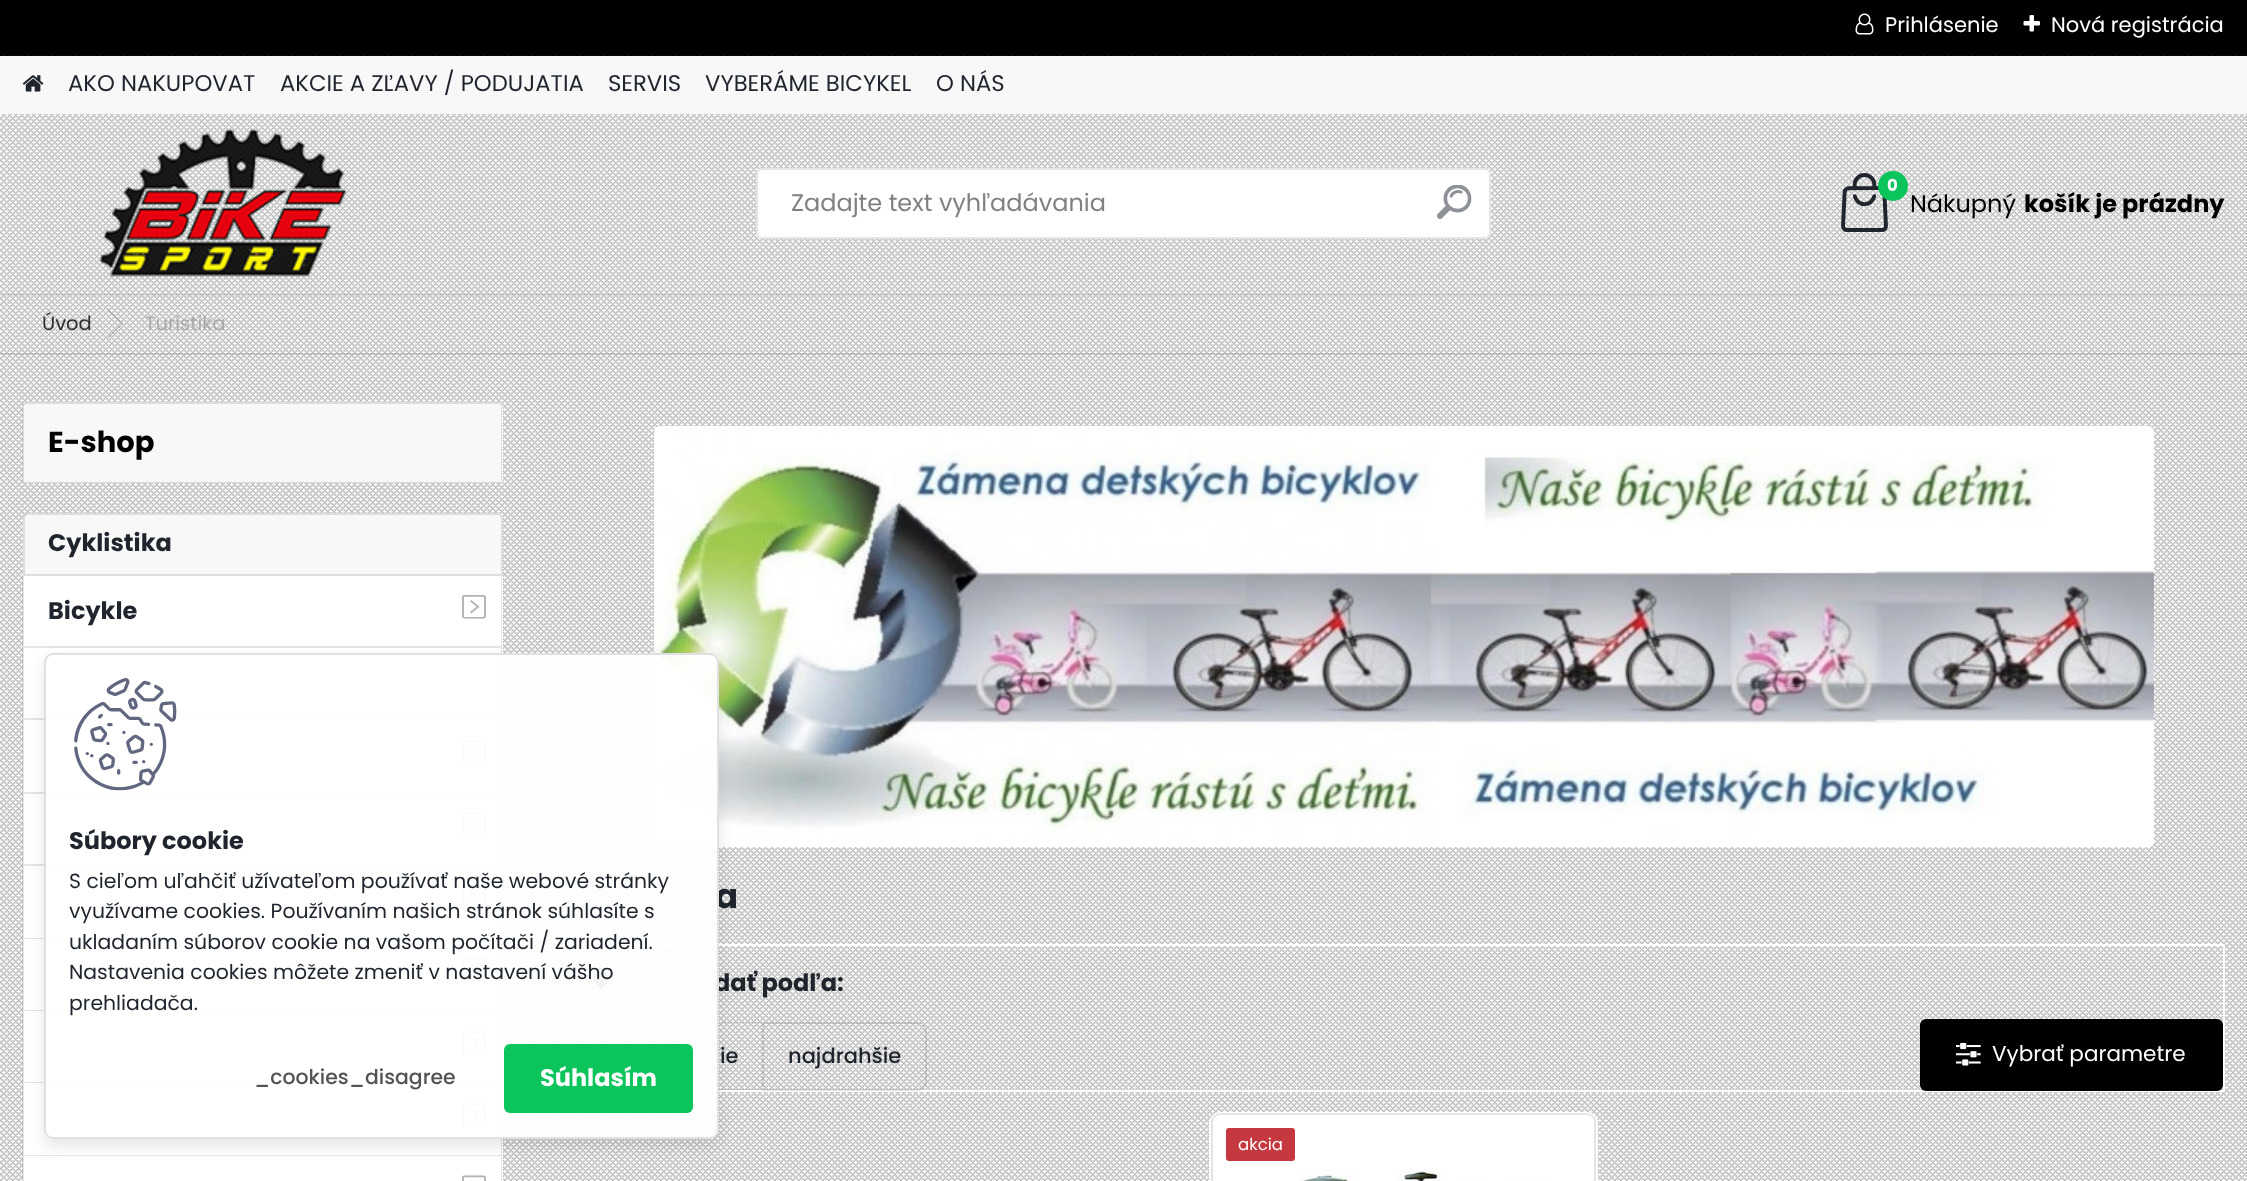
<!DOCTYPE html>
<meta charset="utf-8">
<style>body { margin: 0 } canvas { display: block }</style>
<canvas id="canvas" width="2247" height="1181"></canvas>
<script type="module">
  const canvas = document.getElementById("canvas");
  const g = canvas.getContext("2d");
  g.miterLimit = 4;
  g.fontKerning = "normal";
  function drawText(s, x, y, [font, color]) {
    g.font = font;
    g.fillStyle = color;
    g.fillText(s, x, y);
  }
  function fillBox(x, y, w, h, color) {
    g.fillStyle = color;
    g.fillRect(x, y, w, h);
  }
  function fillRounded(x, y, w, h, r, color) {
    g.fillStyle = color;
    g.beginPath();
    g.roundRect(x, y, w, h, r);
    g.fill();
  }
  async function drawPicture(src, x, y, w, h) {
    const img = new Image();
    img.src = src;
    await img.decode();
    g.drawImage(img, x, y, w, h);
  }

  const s1 = ["21px Poppins", "#FFFFFF"];
  const s2 = ["22.75px Poppins", "#1F242D"];
  const s3 = ["24px Poppins", "#808080"];
  const s4 = ["bold 16.5px Poppins", "#FFFFFF"];
  const s5 = ["24px Poppins", "#000000"];
  const s6 = ["bold 24px Poppins", "#000000"];
  const s7 = ["19.5px Poppins", "#2D2D2D"];
  const s8 = ["19.5px Poppins", "#AAAAAA"];
  const s9 = ["bold 29px Poppins", "#000000"];
  const s10 = ["bold 24px Poppins", "#1F242D"];
  const s11 = ["bold 34px Poppins", "#1F242D"];
  const s12 = ["500 21px Poppins", "#1F242D"];
  const s13 = ["21.5px Poppins", "#FFFFFF"];
  const s14 = ["16.5px Poppins", "#FFFFFF"];
  const s15 = ["20.4px Poppins", "#1F242D"];
  const s16 = ["500 20.4px Poppins", "#535353"];
  const s17 = ["bold 24px Poppins", "#FFFFFF"];

  fillBox(0, 0, 2247, 1181, "#FFFFFF");
  fillBox(0, 0, 2247, 56, "#000000");
  await drawPicture("pic1.png", 1855, 13, 19, 22);
  drawText("Prihlásenie", 1885, 32, s1);
  await drawPicture("pic2.png", 2023, 15, 17, 17);
  drawText("Nová registrácia", 2051, 32, s1);
  await drawPicture("pic3.png", 0, 55, 2247, 241);
  fillBox(0, 294, 2247, 2, "rgba(0, 0, 0, 0.1)");
  fillBox(0, 56, 2247, 58, "#F8F8F8");
  await drawPicture("pic4.png", 22, 75, 22, 17);
  drawText("AKO NAKUPOVAT", 68, 91, s2);
  drawText("AKCIE A ZĽAVY / PODUJATIA", 280, 91, s2);
  drawText("SERVIS", 608, 91, s2);
  drawText("VYBERÁME BICYKEL", 705, 91, s2);
  drawText("O NÁS", 936, 91, s2);
  await drawPicture("pic5.png", 100, 129, 247, 149);
  fillRounded(756, 168, 735, 71, 6, "#FFFFFF");
  g.beginPath();
  g.roundRect(757, 169, 733, 69, 5);
  g.strokeStyle = "rgba(0, 0, 0, 0.1)";
  g.lineWidth = 2;
  g.stroke();
  drawText("Zadajte text vyhľadávania", 791, 211, s3);
  await drawPicture("pic6.png", 1437, 185, 35, 34);
  await drawPicture("pic7.png", 1841, 173, 47, 59);
  g.fillStyle = "#0BC45C";
  g.beginPath();
  g.arc(1893, 186, 15, 0, Math.PI * 2);
  g.fill();
  drawText("0", 1887, 191, s4);
  drawText("Nákupný", 1910, 212, s5);
  drawText("košík je prázdny", 2024, 212, s6);
  await drawPicture("pic8.png", 0, 296, 2247, 885);
  fillBox(0, 353, 2247, 2, "rgba(0, 0, 0, 0.1)");
  drawText("Úvod", 42, 330, s7);
  g.fillStyle = "rgba(55, 55, 55, 0.3)";
  g.beginPath();
  g.moveTo(107, 309.5);
  g.lineTo(108.5, 309.5);
  g.lineTo(123, 323.5);
  g.lineTo(121.5, 323.5);
  g.closePath();
  g.fill();
  g.beginPath();
  g.moveTo(121.5, 323.5);
  g.lineTo(123, 323.5);
  g.lineTo(108.5, 338);
  g.lineTo(107, 338);
  g.closePath();
  g.fill();
  drawText("Turistika", 145, 330, s8);
  g.fillStyle = "#D9D9D9";
  g.beginPath();
  g.moveTo(23, 482);
  g.lineTo(23, 483);
  g.lineTo(503, 483);
  g.lineTo(503, 409);
  g.lineTo(502, 407);
  g.lineTo(502, 482);
  g.closePath();
  g.fill();
  g.fillStyle = "#F8F8F8";
  g.beginPath();
  g.roundRect(23, 402, 480, 80, [5, 5, 0, 0]);
  g.fill();
  g.fillStyle = "rgba(0, 0, 0, 0.1)";
  g.beginPath();
  g.moveTo(27, 402);
  g.lineTo(498, 402);
  g.bezierCurveTo(500, 402, 502, 404, 502, 406);
  g.lineTo(502, 482);
  g.lineTo(22, 482);
  g.lineTo(22, 406);
  g.bezierCurveTo(22, 404, 25, 402, 27, 402);
  g.closePath();
  g.moveTo(27, 404);
  g.lineTo(498, 404);
  g.bezierCurveTo(500, 404, 501, 405, 501, 406);
  g.lineTo(501, 482);
  g.lineTo(24, 482);
  g.lineTo(24, 406);
  g.bezierCurveTo(24, 405, 25, 404, 27, 404);
  g.closePath();
  g.fill("evenodd");
  drawText("E-shop", 48, 452, s9);
  g.fillStyle = "#F8F8F8";
  g.beginPath();
  g.roundRect(23, 513, 480, 63, [6, 6, 0, 0]);
  g.fill();
  g.beginPath();
  g.roundRect(24, 514, 478, 61, [5, 5, 0, 0]);
  g.stroke();
  drawText("Cyklistika", 48, 551, s10);
  fillBox(23, 576, 480, 605, "#FFFFFF");
  g.fillStyle = "#E6E6E6";
  g.beginPath();
  g.moveTo(502, 576);
  g.lineTo(502, 648);
  g.lineTo(501, 646);
  g.lineTo(501, 576);
  g.closePath();
  g.fill();
  g.fillStyle = "rgba(0, 0, 0, 0.1)";
  g.beginPath();
  g.moveTo(502, 648);
  g.lineTo(22, 648);
  g.lineTo(24, 646);
  g.lineTo(501, 646);
  g.closePath();
  g.fill();
  g.beginPath();
  g.moveTo(22, 648);
  g.lineTo(22, 576);
  g.lineTo(24, 576);
  g.lineTo(24, 646);
  g.closePath();
  g.fill();
  drawText("Bicykle", 48, 619, s10);
  await drawPicture("pic9.png", 462, 595, 24, 24);
  g.fillStyle = "#E6E6E6";
  g.beginPath();
  g.moveTo(502, 648);
  g.lineTo(502, 720);
  g.lineTo(501, 718);
  g.lineTo(501, 648);
  g.closePath();
  g.fill();
  g.fillStyle = "rgba(0, 0, 0, 0.1)";
  g.beginPath();
  g.moveTo(502, 720);
  g.lineTo(22, 720);
  g.lineTo(24, 718);
  g.lineTo(501, 718);
  g.closePath();
  g.fill();
  g.beginPath();
  g.moveTo(22, 720);
  g.lineTo(22, 648);
  g.lineTo(24, 648);
  g.lineTo(24, 718);
  g.closePath();
  g.fill();
  g.fillStyle = "#E6E6E6";
  g.beginPath();
  g.moveTo(502, 720);
  g.lineTo(502, 794);
  g.lineTo(501, 792);
  g.lineTo(501, 720);
  g.closePath();
  g.fill();
  g.fillStyle = "rgba(0, 0, 0, 0.1)";
  g.beginPath();
  g.moveTo(502, 794);
  g.lineTo(22, 794);
  g.lineTo(24, 792);
  g.lineTo(501, 792);
  g.closePath();
  g.fill();
  g.beginPath();
  g.moveTo(22, 794);
  g.lineTo(22, 720);
  g.lineTo(24, 720);
  g.lineTo(24, 792);
  g.closePath();
  g.fill();
  await drawPicture("pic10.png", 462, 740, 24, 24);
  g.fillStyle = "#E6E6E6";
  g.beginPath();
  g.moveTo(502, 794);
  g.lineTo(502, 866);
  g.lineTo(501, 864);
  g.lineTo(501, 794);
  g.closePath();
  g.fill();
  g.fillStyle = "rgba(0, 0, 0, 0.1)";
  g.beginPath();
  g.moveTo(502, 866);
  g.lineTo(22, 866);
  g.lineTo(24, 864);
  g.lineTo(501, 864);
  g.closePath();
  g.fill();
  g.beginPath();
  g.moveTo(22, 866);
  g.lineTo(22, 794);
  g.lineTo(24, 794);
  g.lineTo(24, 864);
  g.closePath();
  g.fill();
  await drawPicture("pic11.png", 462, 812, 24, 24);
  g.fillStyle = "#E6E6E6";
  g.beginPath();
  g.moveTo(502, 866);
  g.lineTo(502, 939);
  g.lineTo(501, 938);
  g.lineTo(501, 866);
  g.closePath();
  g.fill();
  g.fillStyle = "rgba(0, 0, 0, 0.1)";
  g.beginPath();
  g.moveTo(502, 939);
  g.lineTo(22, 939);
  g.lineTo(24, 938);
  g.lineTo(501, 938);
  g.closePath();
  g.fill();
  g.beginPath();
  g.moveTo(22, 939);
  g.lineTo(22, 866);
  g.lineTo(24, 866);
  g.lineTo(24, 938);
  g.closePath();
  g.fill();
  await drawPicture("pic9.png", 462, 886, 24, 24);
  g.fillStyle = "#E6E6E6";
  g.beginPath();
  g.moveTo(502, 939);
  g.lineTo(502, 1011);
  g.lineTo(501, 1010);
  g.lineTo(501, 939);
  g.closePath();
  g.fill();
  g.fillStyle = "rgba(0, 0, 0, 0.1)";
  g.beginPath();
  g.moveTo(502, 1011);
  g.lineTo(22, 1011);
  g.lineTo(24, 1010);
  g.lineTo(501, 1010);
  g.closePath();
  g.fill();
  g.beginPath();
  g.moveTo(22, 1011);
  g.lineTo(22, 939);
  g.lineTo(24, 939);
  g.lineTo(24, 1010);
  g.closePath();
  g.fill();
  await drawPicture("pic9.png", 462, 958, 24, 24);
  g.fillStyle = "#E6E6E6";
  g.beginPath();
  g.moveTo(502, 1011);
  g.lineTo(502, 1083);
  g.lineTo(501, 1082);
  g.lineTo(501, 1011);
  g.closePath();
  g.fill();
  g.fillStyle = "rgba(0, 0, 0, 0.1)";
  g.beginPath();
  g.moveTo(502, 1083);
  g.lineTo(22, 1083);
  g.lineTo(24, 1082);
  g.lineTo(501, 1082);
  g.closePath();
  g.fill();
  g.beginPath();
  g.moveTo(22, 1083);
  g.lineTo(22, 1011);
  g.lineTo(24, 1011);
  g.lineTo(24, 1082);
  g.closePath();
  g.fill();
  await drawPicture("pic11.png", 462, 1031, 24, 24);
  g.fillStyle = "#E6E6E6";
  g.beginPath();
  g.moveTo(502, 1083);
  g.lineTo(502, 1156);
  g.lineTo(501, 1155);
  g.lineTo(501, 1083);
  g.closePath();
  g.fill();
  g.fillStyle = "rgba(0, 0, 0, 0.1)";
  g.beginPath();
  g.moveTo(502, 1156);
  g.lineTo(22, 1156);
  g.lineTo(24, 1155);
  g.lineTo(501, 1155);
  g.closePath();
  g.fill();
  g.beginPath();
  g.moveTo(22, 1156);
  g.lineTo(22, 1083);
  g.lineTo(24, 1083);
  g.lineTo(24, 1155);
  g.closePath();
  g.fill();
  await drawPicture("pic11.png", 462, 1103, 24, 24);
  g.fillStyle = "#E6E6E6";
  g.beginPath();
  g.moveTo(502, 1156);
  g.lineTo(502, 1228);
  g.lineTo(501, 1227);
  g.lineTo(501, 1156);
  g.closePath();
  g.fill();
  g.fillStyle = "rgba(0, 0, 0, 0.1)";
  g.beginPath();
  g.moveTo(22, 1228);
  g.lineTo(22, 1156);
  g.lineTo(24, 1156);
  g.lineTo(24, 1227);
  g.closePath();
  g.fill();
  await drawPicture("pic12.png", 462, 1175, 24, 6);
  await drawPicture("pic13.png", 654, 426, 1500, 422);
  drawText("a", 715, 908, s11);
  g.strokeStyle = "#FFFFFF";
  g.strokeRect(585, 945, 1639, 146);
  await drawPicture("pic14.png", 593, 966, 17, 24);
  drawText("dať podľa:", 714, 991, s10);
  g.fillStyle = "rgba(0, 0, 0, 0.1)";
  g.beginPath();
  g.moveTo(594, 1022);
  g.lineTo(762, 1022);
  g.lineTo(762, 1090);
  g.lineTo(594, 1090);
  g.bezierCurveTo(589, 1090, 585, 1086, 585, 1082);
  g.lineTo(585, 1030);
  g.bezierCurveTo(585, 1026, 589, 1022, 594, 1022);
  g.closePath();
  g.moveTo(594, 1023);
  g.lineTo(762, 1023);
  g.lineTo(762, 1089);
  g.lineTo(594, 1089);
  g.bezierCurveTo(590, 1089, 586, 1086, 586, 1082);
  g.lineTo(586, 1030);
  g.bezierCurveTo(586, 1026, 590, 1023, 594, 1023);
  g.closePath();
  g.fill("evenodd");
  drawText("ie", 720, 1063, s12);
  g.beginPath();
  g.roundRect(763, 1023, 163, 67, [0, 8, 8, 0]);
  g.strokeStyle = "rgba(0, 0, 0, 0.1)";
  g.stroke();
  drawText("najdrahšie", 788, 1063, s12);
  fillRounded(1920, 1019, 303, 72, 6, "#000000");
  await drawPicture("pic15.png", 1956, 1042, 25, 24);
  drawText("Vybrať parametre", 1992, 1061, s13);
  g.beginPath();
  g.roundRect(1210, 1113, 387, 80, 10);
  g.strokeStyle = "#FFFFFF";
  g.stroke();
  fillRounded(1211, 1113, 385, 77, 9, "#FFFFFF");
  g.beginPath();
  g.roundRect(1212, 1114, 383, 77, 8);
  g.strokeStyle = "rgba(0, 0, 0, 0.1)";
  g.stroke();
  await drawPicture("pic16.png", 1299, 1169, 254, 12);
  fillRounded(1226, 1128, 69, 33, 3, "#C5383F");
  drawText("akcia", 1238, 1150, s14);
  g.save();
  g.beginPath();
  g.moveTo(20, 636);
  g.lineTo(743, 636);
  g.lineTo(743, 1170);
  g.lineTo(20, 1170);
  g.closePath();
  g.moveTo(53, 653);
  g.lineTo(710, 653);
  g.bezierCurveTo(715, 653, 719, 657, 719, 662);
  g.lineTo(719, 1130);
  g.bezierCurveTo(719, 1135, 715, 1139, 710, 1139);
  g.lineTo(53, 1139);
  g.bezierCurveTo(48, 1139, 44, 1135, 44, 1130);
  g.lineTo(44, 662);
  g.bezierCurveTo(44, 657, 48, 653, 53, 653);
  g.closePath();
  g.clip("evenodd");
  g.fillStyle = "rgba(0, 0, 0, 0.1)";
  g.filter = "blur(7.5px)";
  g.beginPath();
  g.roundRect(44, 660, 675, 486, 9);
  g.fill();
  g.filter = "none";
  g.restore();
  g.fillStyle = "rgba(255, 255, 255, 0.95)";
  g.beginPath();
  g.roundRect(45, 654, 673, 484, 8);
  g.fill();
  g.strokeStyle = "#E0E0E0";
  g.stroke();
  await drawPicture("pic17.png", 74, 678, 103, 113);
  drawText("Súbory cookie", 69, 849, s10);
  drawText("S cieľom uľahčiť užívateľom používať naše webové stránky", 69, 888, s15);
  drawText("využívame cookies. Používaním našich stránok súhlasíte s", 69, 918, s15);
  drawText("ukladaním súborov cookie na vašom počítači / zariadení.", 69, 949, s15);
  drawText("Nastavenia cookies môžete zmeniť v nastavení vášho", 69, 979, s15);
  drawText("prehliadača.", 69, 1010, s15);
  drawText("_cookies_disagree", 254, 1084, s16);
  fillRounded(504, 1044, 189, 69, 6, "#0BC45C");
  drawText("Súhlasím", 540, 1086, s17);
</script>
